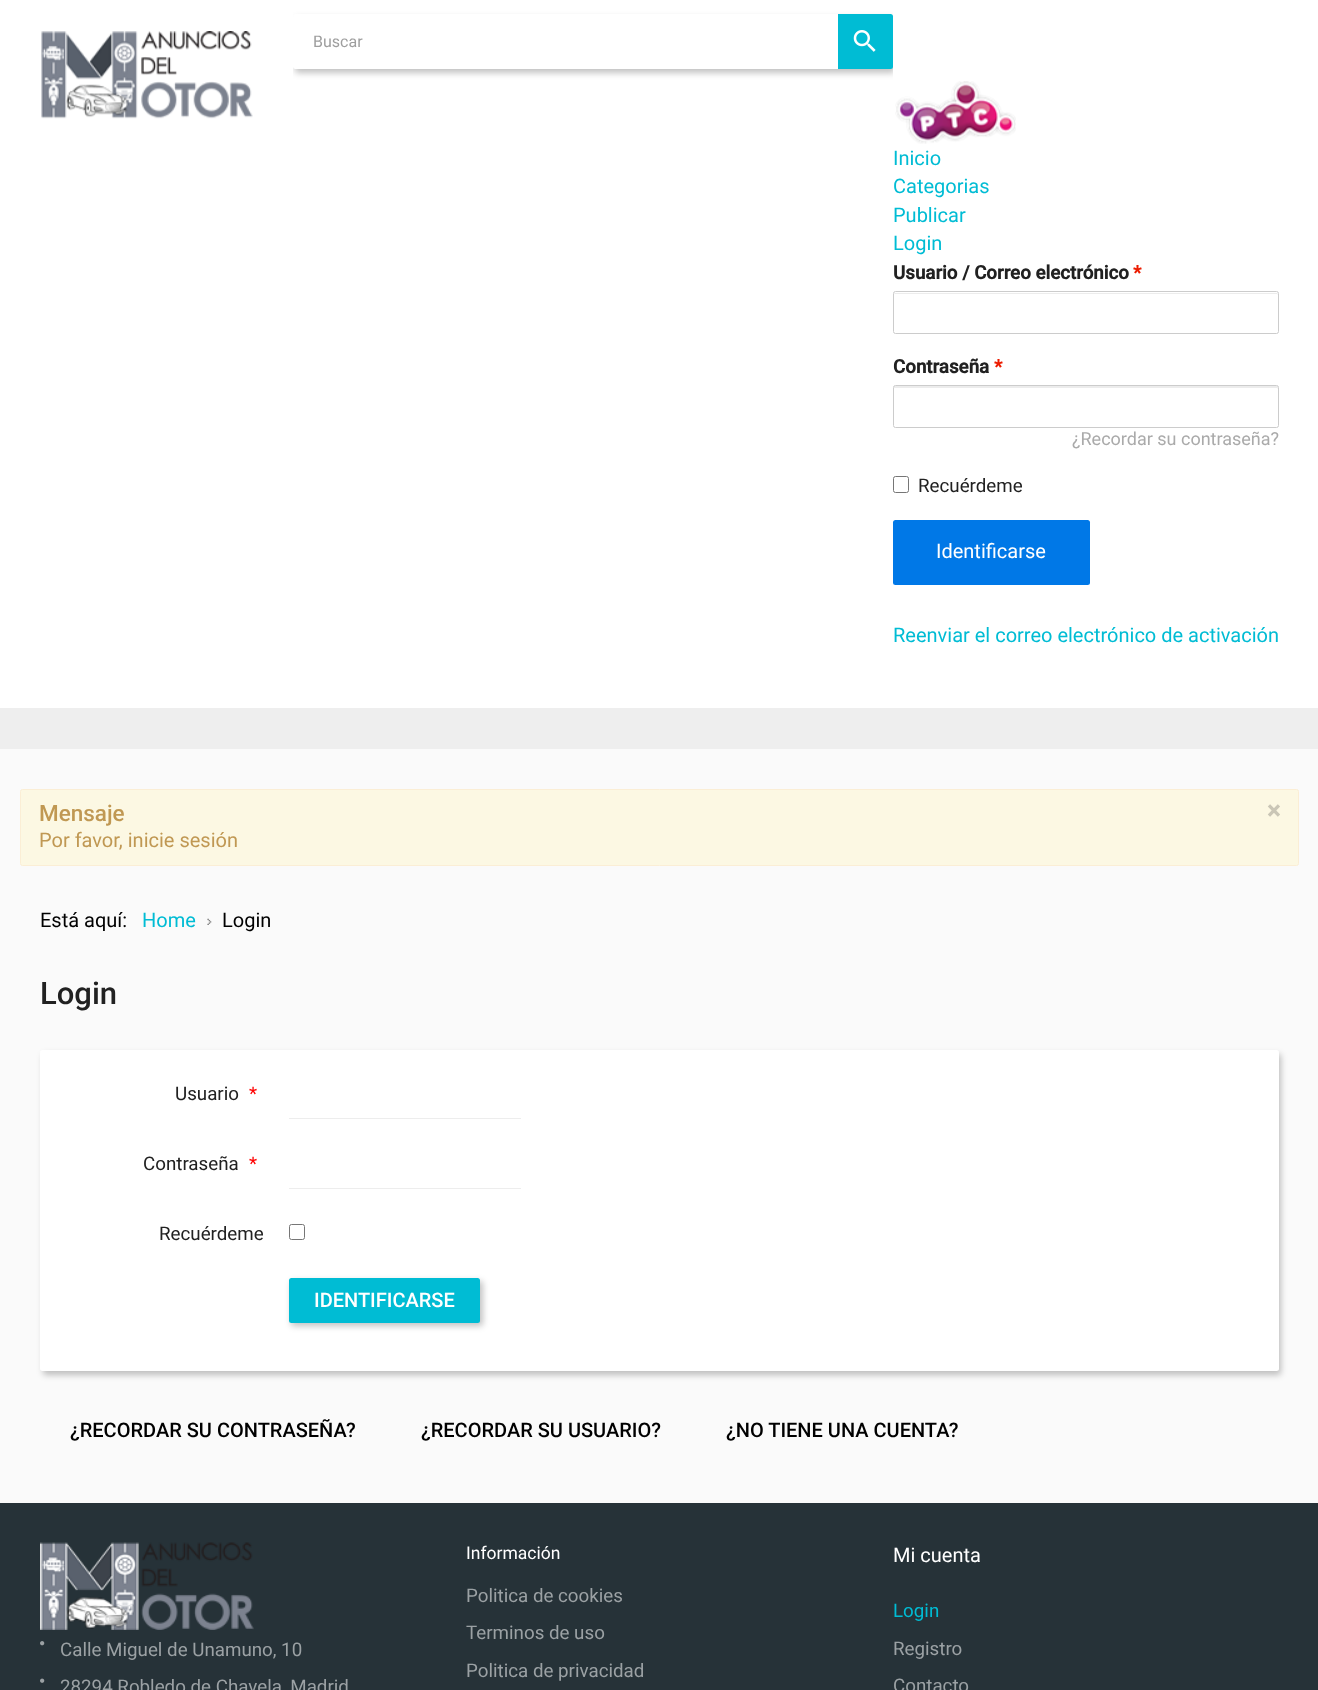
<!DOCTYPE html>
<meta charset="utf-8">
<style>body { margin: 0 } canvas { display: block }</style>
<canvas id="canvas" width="1318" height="1690"></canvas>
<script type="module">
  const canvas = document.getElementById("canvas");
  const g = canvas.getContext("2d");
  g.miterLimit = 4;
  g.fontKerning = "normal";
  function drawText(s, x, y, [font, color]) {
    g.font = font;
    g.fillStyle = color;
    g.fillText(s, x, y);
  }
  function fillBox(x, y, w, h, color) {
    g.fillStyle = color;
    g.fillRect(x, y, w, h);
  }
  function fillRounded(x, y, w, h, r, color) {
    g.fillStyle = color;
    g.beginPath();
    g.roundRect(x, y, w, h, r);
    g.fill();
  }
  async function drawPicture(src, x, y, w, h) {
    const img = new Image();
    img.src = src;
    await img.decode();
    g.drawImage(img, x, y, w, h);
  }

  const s1 = ["16px Roboto", "#9E9E9E"];
  const s2 = ["20px Roboto", "#00BCD4"];
  const s3 = ["bold 18.75px Roboto", "#212121"];
  const s4 = ["bold 18.75px Roboto", "#EC1C00"];
  const s5 = ["18px Roboto", "#AAAAAA"];
  const s6 = ["18.75px Roboto", "#212121"];
  const s7 = ["20px Roboto", "#FFFFFF"];
  const s8 = ["500 22.5px Roboto", "#C09853"];
  const s9 = ["bold 25px Roboto", "#CAC6B6"];
  const s10 = ["20px Roboto", "#C09853"];
  const s11 = ["20px Roboto", "#000000"];
  const s12 = ["500 31px Roboto", "#212121"];
  const s13 = ["18.75px Roboto", "#FF0000"];
  const s14 = ["500 20px Roboto", "#FFFFFF"];
  const s15 = ["500 20px Roboto", "#000000"];
  const s16 = ["18.75px Roboto", "#9BA1A4"];
  const s17 = ["17.5px Roboto", "#FFFFFF"];
  const s18 = ["18.75px Roboto", "#00BCD4"];

  fillBox(0, 0, 1318, 1690, "#FAFAFA");
  fillBox(0, 0, 1318, 708, "#FFFFFF");
  await drawPicture("pic1.png", 41, 31, 212, 88);
  await drawPicture("pic3.png", 895, 81, 121, 63);
  g.save();
  g.beginPath();
  g.rect(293, 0, 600, 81);
  g.clip();
  g.fillStyle = "rgba(0, 0, 0, 0.24)";
  g.filter = "blur(3px)";
  g.beginPath();
  g.roundRect(295, 18, 600, 55, 3);
  g.fill();
  g.filter = "none";
  g.restore();
  g.beginPath();
  g.roundRect(293, 14, 545, 55, [2.5, 0, 0, 2.5]);
  g.fill();
  drawText("Buscar", 313, 47, s1);
  g.fillStyle = "#00BCD4";
  g.beginPath();
  g.roundRect(838, 14, 55, 55, [0, 2.5, 2.5, 0]);
  g.fill();
  await drawPicture("pic2.png", 853, 30, 23, 22);
  drawText("Inicio", 893, 165, s2);
  drawText("Categorias", 893, 193, s2);
  drawText("Publicar", 893, 222, s2);
  drawText("Login", 893, 250, s2);
  drawText("Usuario / Correo electrónico", 893, 279, s3);
  drawText("*", 1133, 279, s4);
  g.fillStyle = "#ECECEC";
  g.beginPath();
  g.moveTo(895, 294);
  g.lineTo(1276, 294);
  g.bezierCurveTo(1277, 294, 1278, 294, 1278, 295);
  g.lineTo(1278, 294);
  g.lineTo(1277, 293);
  g.lineTo(895, 293);
  g.bezierCurveTo(894, 293, 894, 294, 894, 295);
  g.bezierCurveTo(894, 294, 894, 294, 895, 294);
  g.closePath();
  g.fill();
  g.beginPath();
  g.roundRect(893.5, 291.5, 385, 42, 2);
  g.strokeStyle = "#CCCCCC";
  g.stroke();
  drawText("Contraseña", 893, 373, s3);
  drawText("*", 994, 373, s4);
  g.fillStyle = "#ECECEC";
  g.beginPath();
  g.moveTo(895, 388);
  g.lineTo(1276, 388);
  g.bezierCurveTo(1277, 388, 1278, 388, 1278, 389);
  g.bezierCurveTo(1278, 388, 1278, 386, 1277, 386);
  g.lineTo(894, 386);
  g.lineTo(894, 389);
  g.bezierCurveTo(894, 388, 894, 388, 895, 388);
  g.closePath();
  g.fill();
  g.beginPath();
  g.roundRect(893.5, 385.5, 385, 42, 2);
  g.stroke();
  drawText("¿Recordar su contraseña?", 1072, 445, s5);
  g.beginPath();
  g.roundRect(893.5, 476.5, 15, 16, 2);
  g.strokeStyle = "#767676";
  g.stroke();
  drawText("Recuérdeme", 918, 492, s6);
  fillRounded(893, 520, 197, 65, 2.5, "#0078E7");
  drawText("Identificarse", 936, 558, s7);
  drawText("Reenviar el correo electrónico de activación", 893, 642, s2);
  fillBox(0, 708, 1318, 41, "#EEEEEE");
  g.fillStyle = "#FCF8E3";
  g.beginPath();
  g.roundRect(20.5, 789.5, 1278, 76, 2);
  g.fill();
  g.strokeStyle = "#FBEED5";
  g.stroke();
  drawText("Mensaje", 39, 821, s8);
  drawText("×", 1267, 819, s9);
  drawText("Por favor, inicie sesión", 39, 847, s10);
  drawText("Está aquí:", 40, 927, s11);
  drawText("Home", 142, 927, s2);
  await drawPicture("pic4.png", 207, 918, 5, 7);
  drawText("Login", 222, 927, s11);
  drawText("Login", 40, 1004, s12);
  g.fillStyle = "rgba(0, 0, 0, 0.24)";
  g.filter = "blur(3px)";
  g.beginPath();
  g.roundRect(43, 1054, 1238, 321, 3);
  g.fill();
  g.filter = "none";
  fillRounded(40, 1050, 1239, 321, 2.5, "#FFFFFF");
  drawText("Usuario", 175, 1100, s6);
  drawText("*", 249, 1100, s13);
  fillBox(289, 1118, 232, 1, "#EDEDED");
  drawText("Contraseña", 143, 1170, s6);
  drawText("*", 249, 1170, s13);
  fillBox(289, 1188, 232, 1, "#EDEDED");
  drawText("Recuérdeme", 159, 1240, s6);
  g.beginPath();
  g.roundRect(289.5, 1224.5, 15, 15, 2);
  g.strokeStyle = "#767676";
  g.stroke();
  g.fillStyle = "rgba(0, 0, 0, 0.24)";
  g.filter = "blur(3px)";
  g.beginPath();
  g.roundRect(291, 1281, 192, 45, 3);
  g.fill();
  g.filter = "none";
  fillRounded(289, 1278, 191, 45, 2.5, "#00BCD4");
  drawText("IDENTIFICARSE", 314, 1307, s14);
  drawText("¿RECORDAR SU CONTRASEÑA?", 70, 1437, s15);
  drawText("¿RECORDAR SU USUARIO?", 421, 1437, s15);
  drawText("¿NO TIENE UNA CUENTA?", 726, 1437, s15);
  fillBox(0, 1503, 1318, 187, "#263238");
  await drawPicture("pic5.png", 40, 1542, 214, 88);
  await drawPicture("pic6.png", 40, 1641, 5, 5);
  drawText("Calle Miguel de Unamuno, 10", 60, 1656, s16);
  await drawPicture("pic7.png", 40, 1678, 5, 5);
  drawText("28294 Robledo de Chavela, Madrid", 60, 1693, s16);
  drawText("Información", 466, 1559, s17);
  drawText("Politica de cookies", 466, 1602, s16);
  drawText("Terminos de uso", 466, 1639, s16);
  drawText("Politica de privacidad", 466, 1677, s16);
  drawText("Mi cuenta", 893, 1562, s7);
  drawText("Login", 893, 1617, s18);
  drawText("Registro", 893, 1655, s16);
  drawText("Contacto", 893, 1692, s16);
</script>
